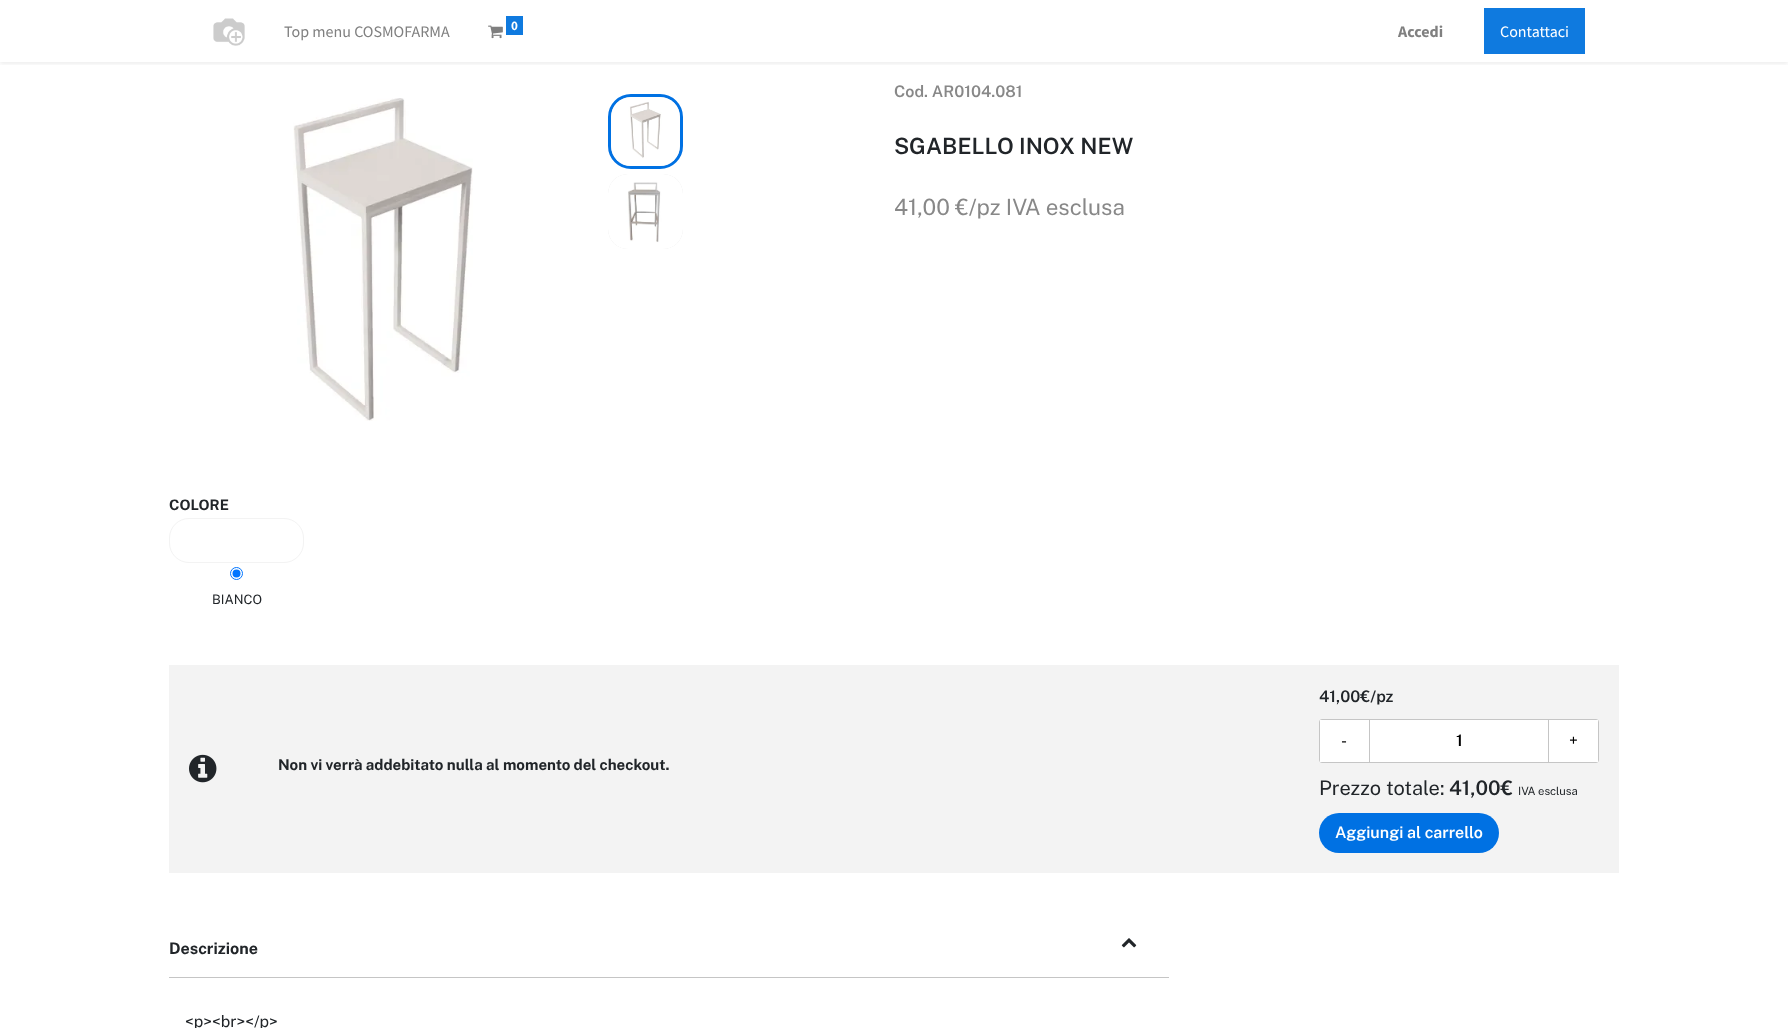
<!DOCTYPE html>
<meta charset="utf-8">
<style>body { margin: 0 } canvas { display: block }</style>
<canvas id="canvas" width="1788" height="1028"></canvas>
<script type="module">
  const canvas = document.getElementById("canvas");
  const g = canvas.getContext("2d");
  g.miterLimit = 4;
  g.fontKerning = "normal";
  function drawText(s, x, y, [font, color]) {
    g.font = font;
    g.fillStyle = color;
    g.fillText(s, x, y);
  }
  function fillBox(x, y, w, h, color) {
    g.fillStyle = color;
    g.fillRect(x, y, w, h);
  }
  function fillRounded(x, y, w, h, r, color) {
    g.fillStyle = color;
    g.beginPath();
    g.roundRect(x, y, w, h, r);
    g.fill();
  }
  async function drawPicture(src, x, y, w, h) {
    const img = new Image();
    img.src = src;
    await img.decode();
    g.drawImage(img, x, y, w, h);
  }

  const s1 = ["16px Source Sans Pro", "#808080"];
  const s2 = ["bold 13px Source Sans Pro", "#FFFFFF"];
  const s3 = ["bold 16px Source Sans Pro", "#808080"];
  const s4 = ["16px Source Sans Pro", "#FFFFFF"];
  const s5 = ["600 16px Public Sans", "#888888"];
  const s6 = ["600 22.4px Public Sans", "#212529"];
  const s7 = ["22.4px Public Sans", "#888888"];
  const s8 = ["bold 14.5px Public Sans", "#212529"];
  const s9 = ["13px Public Sans", "#212529"];
  const s10 = ["bold 15px Public Sans", "#212529"];
  const s11 = ["600 16px Public Sans", "#212529"];
  const s12 = ["16px Public Sans", "#000000"];
  const s13 = ["600 16px Public Sans", "#000000"];
  const s14 = ["20px Public Sans", "#212529"];
  const s15 = ["600 20px Public Sans", "#212529"];
  const s16 = ["11.25px Public Sans", "#212529"];
  const s17 = ["600 16px Public Sans", "#FFFFFF"];
  const s18 = ["bold 16px Public Sans", "#212529"];
  const s19 = ["16px Public Sans", "#212529"];

  fillBox(0, 0, 1788, 1028, "#FFFFFF");
  g.save();
  g.beginPath();
  g.rect(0, 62, 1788, 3);
  g.clip();
  g.fillStyle = "rgba(0, 0, 0, 0.07)";
  g.filter = "blur(2px)";
  g.beginPath();
  g.rect(0, 2, 1788, 62);
  g.fill();
  g.filter = "none";
  g.restore();
  await drawPicture("pic1.png", 213, 18, 32, 28);
  drawText("Top menu COSMOFARMA", 284, 37, s1);
  await drawPicture("pic2.png", 488, 25, 15, 14);
  fillBox(506, 16, 17, 19, "#0F7ADF");
  drawText("0", 511, 30, s2);
  drawText("Accedi", 1398, 37, s3);
  fillBox(1484, 8, 101, 46, "#0F7ADF");
  drawText("Contattaci", 1500, 37, s4);
  await drawPicture("pic3.png", 293, 98, 180, 323);
  g.fillStyle = "#EFEFEF";
  g.beginPath();
  g.roundRect(609.5, 95.5, 72, 72, 21.5);
  g.fill();
  g.strokeStyle = "#0071E3";
  g.lineWidth = 3;
  g.stroke();
  await drawPicture("pic4.png", 611, 97, 69, 69);
  fillRounded(608, 174, 75, 75, 20, "#EFEFEF");
  await drawPicture("pic5.png", 608, 174, 75, 75);
  drawText("Cod. AR0104.081", 894, 97, s5);
  drawText("SGABELLO INOX NEW", 894, 154, s6);
  drawText("41,00 €/pz IVA esclusa", 894, 215, s7);
  drawText("COLORE", 169, 510, s8);
  g.beginPath();
  g.roundRect(169.5, 518.5, 134, 44, 19.5);
  g.strokeStyle = "#F3F3F3";
  g.lineWidth = 1;
  g.stroke();
  g.beginPath();
  g.arc(236.5, 573.5, 6, 0, Math.PI * 2);
  g.strokeStyle = "#0075FF";
  g.stroke();
  g.fillStyle = "#0075FF";
  g.beginPath();
  g.arc(236.5, 573.5, 4, 0, Math.PI * 2);
  g.fill();
  drawText("BIANCO", 212, 604, s9);
  fillBox(169, 665, 1450, 208, "#F3F3F3");
  await drawPicture("pic6.png", 189, 754, 28, 29);
  drawText("Non vi verrà addebitato nulla al momento del checkout.", 278, 770, s10);
  drawText("41,00€/pz", 1319, 702, s11);
  g.beginPath();
  g.roundRect(1319.5, 719.5, 279, 43, 2.5);
  g.strokeStyle = "#C5C5C5";
  g.stroke();
  fillBox(1320, 720, 49, 42, "#FFFFFF");
  drawText("-", 1341, 746, s12);
  fillBox(1370, 720, 178, 42, "#FFFFFF");
  fillBox(1548, 720, 1, 42, "#C5C5C5");
  fillBox(1369, 720, 1, 42, "#C5C5C5");
  drawText("1", 1456, 746, s13);
  fillBox(1549, 720, 49, 42, "#FFFFFF");
  drawText("+", 1569, 746, s12);
  drawText("Prezzo totale:", 1319, 795, s14);
  drawText("41,00€", 1449, 795, s15);
  drawText("IVA esclusa", 1518, 795, s16);
  fillRounded(1319, 813, 180, 40, 20, "#0071E3");
  drawText("Aggiungi al carrello", 1335, 838, s17);
  fillBox(169, 977, 1000, 1, "#C5C5C5");
  drawText("Descrizione", 169, 954, s18);
  await drawPicture("pic7.png", 1121, 938, 16, 10);
  drawText("<p><br><\/p>", 185, 1027, s19);
</script>
